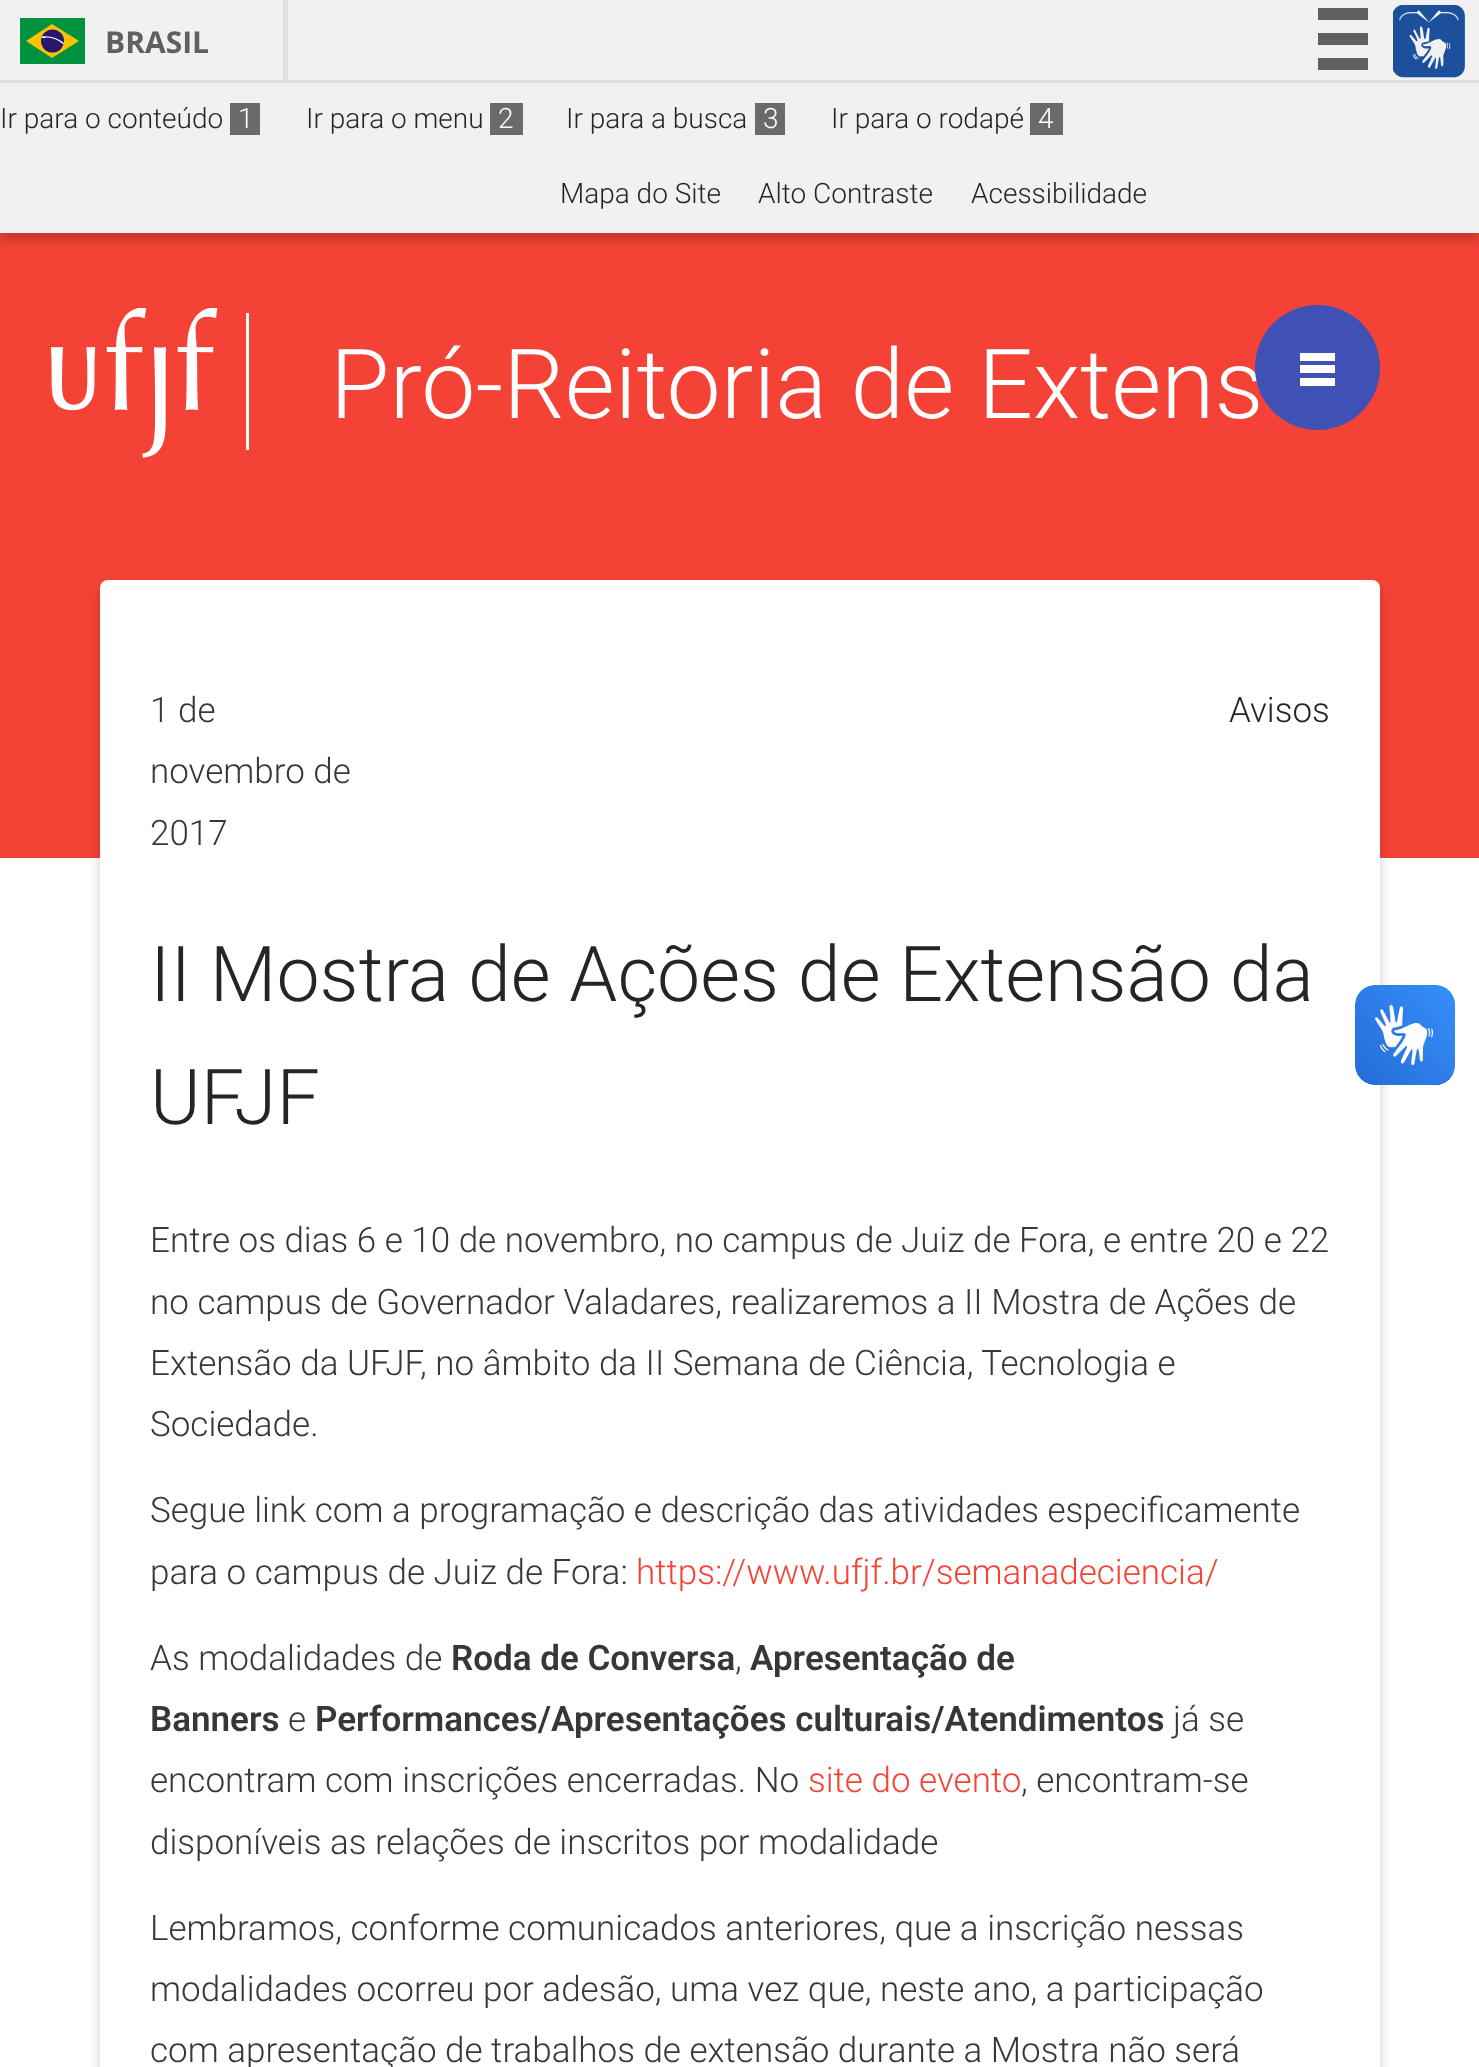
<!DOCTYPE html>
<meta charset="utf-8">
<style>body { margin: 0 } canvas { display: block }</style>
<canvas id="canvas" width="1479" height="2067"></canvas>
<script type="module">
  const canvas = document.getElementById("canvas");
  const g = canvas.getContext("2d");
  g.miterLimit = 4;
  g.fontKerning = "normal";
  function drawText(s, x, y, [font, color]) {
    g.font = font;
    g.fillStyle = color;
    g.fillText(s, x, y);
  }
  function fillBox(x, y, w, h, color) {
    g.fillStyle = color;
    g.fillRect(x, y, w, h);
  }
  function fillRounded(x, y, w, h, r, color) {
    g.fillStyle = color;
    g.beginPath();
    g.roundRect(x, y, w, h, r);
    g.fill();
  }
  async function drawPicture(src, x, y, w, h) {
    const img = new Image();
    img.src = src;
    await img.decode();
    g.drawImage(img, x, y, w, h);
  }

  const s1 = ["bold 30px Open Sans", "#606060"];
  const s2 = ["300 28px Roboto", "#252525"];
  const s3 = ["300 28px Roboto", "#FFFFFF"];
  const s4 = ["300 96.75px Roboto", "#FFFFFF"];
  const s5 = ["300 35px Roboto", "#373737"];
  const s6 = ["300 35px Roboto", "#252525"];
  const s7 = ["300 77px Roboto", "#252525"];
  const s8 = ["300 35px Roboto", "#F44336"];
  const s9 = ["600 35px Roboto", "#373737"];

  fillBox(0, 0, 1479, 2067, "#FFFFFF");
  fillBox(0, 233, 1479, 625, "#F44336");
  g.fillStyle = "rgba(0, 0, 0, 0.2)";
  g.filter = "blur(6px)";
  g.beginPath();
  g.rect(0, 8, 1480, 232);
  g.fill();
  g.filter = "none";
  fillBox(0, 0, 1479, 80, "#F1F1F1");
  fillBox(0, 80, 1479, 3, "#DFDFDF");
  fillBox(283, 0, 5, 80, "#DFDFDF");
  fillBox(20, 18, 65, 46, "#00923F");
  g.fillStyle = "#F8C300";
  g.beginPath();
  g.moveTo(52, 24);
  g.lineTo(26, 41);
  g.lineTo(52, 58);
  g.lineTo(79, 41);
  g.closePath();
  g.fill();
  g.fillStyle = "#28166F";
  g.beginPath();
  g.arc(52.5, 41, 11.5, 0, Math.PI * 2);
  g.fill();
  g.fillStyle = "#FFFFFF";
  g.beginPath();
  g.moveTo(45.5, 37.5);
  g.bezierCurveTo(52.5, 37.5, 58.5, 40, 63.5, 44.5);
  g.lineTo(63.5, 42.5);
  g.bezierCurveTo(57.5, 38, 50, 35.5, 42, 36.5);
  g.lineTo(41.5, 38);
  g.lineTo(45.5, 38);
  g.closePath();
  g.fill();
  drawText("BRASIL", 105, 53, s1);
  fillBox(1318, 8, 50, 12, "#606060");
  fillBox(1318, 33, 50, 12, "#606060");
  fillBox(1318, 58, 50, 12, "#606060");
  await drawPicture("pic1.png", 1393, 5, 72, 73);
  fillBox(0, 83, 1479, 150, "#F1F1F1");
  drawText("Ir para o conteúdo", 0, 128, s2);
  fillBox(230, 103, 30, 32, "#6A6A6A");
  drawText("1", 238, 128, s3);
  drawText("Ir para o menu", 306, 128, s2);
  fillBox(490, 103, 33, 32, "#6A6A6A");
  drawText("2", 498, 128, s3);
  drawText("Ir para a busca", 566, 128, s2);
  fillBox(755, 103, 30, 32, "#6A6A6A");
  drawText("3", 763, 128, s3);
  drawText("Ir para o rodapé", 831, 128, s2);
  fillBox(1030, 103, 33, 32, "#6A6A6A");
  drawText("4", 1038, 128, s3);
  drawText("Mapa do Site", 560, 203, s2);
  drawText("Alto Contraste", 758, 203, s2);
  drawText("Acessibilidade", 971, 203, s2);
  drawText("Pró-Reitoria de Extens", 330, 418, s4);
  g.fillStyle = "#3F51B5";
  g.beginPath();
  g.arc(1317.5, 367.5, 62.5, 0, Math.PI * 2);
  g.fill();
  fillBox(1300, 365, 35, 8, "#FFFFFF");
  fillBox(1300, 353, 35, 8, "#FFFFFF");
  fillBox(1300, 378, 35, 8, "#FFFFFF");
  await drawPicture("pic2.png", 50, 308, 199, 150);
  g.fillStyle = "rgba(0, 0, 0, 0.2)";
  g.filter = "blur(6px)";
  g.beginPath();
  g.roundRect(100, 588, 1280, 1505, 8);
  g.fill();
  g.filter = "none";
  fillRounded(100, 580, 1280, 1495, 8, "#FFFFFF");
  drawText("1 de", 150, 722, s5);
  drawText("novembro de", 150, 783, s5);
  drawText("2017", 150, 845, s5);
  drawText("Avisos", 1229, 722, s6);
  drawText("II Mostra de Ações de Extensão da", 150, 1001, s7);
  drawText("UFJF", 150, 1124, s7);
  drawText("Entre os dias 6 e 10 de novembro, no campus de Juiz de Fora, e entre 20 e 22", 150, 1252, s5);
  drawText("no campus de Governador Valadares, realizaremos a II Mostra de Ações de", 150, 1314, s5);
  drawText("Extensão da UFJF, no âmbito da II Semana de Ciência, Tecnologia e", 150, 1375, s5);
  drawText("Sociedade.", 150, 1436, s5);
  drawText("Segue link com a programação e descrição das atividades especificamente", 150, 1522, s5);
  drawText("para o campus de Juiz de Fora:", 150, 1584, s5);
  drawText("https://www.ufjf.br/semanadeciencia/", 636, 1584, s8);
  drawText("As modalidades de", 150, 1670, s5);
  drawText("Roda de Conversa", 451, 1670, s9);
  drawText(",", 735, 1670, s5);
  drawText("Apresentação de", 750, 1670, s9);
  drawText("Banners", 150, 1731, s9);
  drawText("e", 288, 1731, s5);
  drawText("Performances/Apresentações culturais/Atendimentos", 315, 1731, s9);
  drawText("já se", 1173, 1731, s5);
  drawText("encontram com inscrições encerradas. No", 150, 1792, s5);
  drawText("site do evento", 808, 1792, s8);
  drawText(", encontram-se", 1021, 1792, s5);
  drawText("disponíveis as relações de inscritos por modalidade", 150, 1854, s5);
  drawText("Lembramos, conforme comunicados anteriores, que a inscrição nessas", 150, 1940, s5);
  drawText("modalidades ocorreu por adesão, uma vez que, neste ano, a participação", 150, 2001, s5);
  drawText("com apresentação de trabalhos de extensão durante a Mostra não será", 150, 2062, s5);
  await drawPicture("pic3.png", 1355, 985, 100, 100);
  await drawPicture("pic4.png", 1355, 985, 100, 100);
</script>
